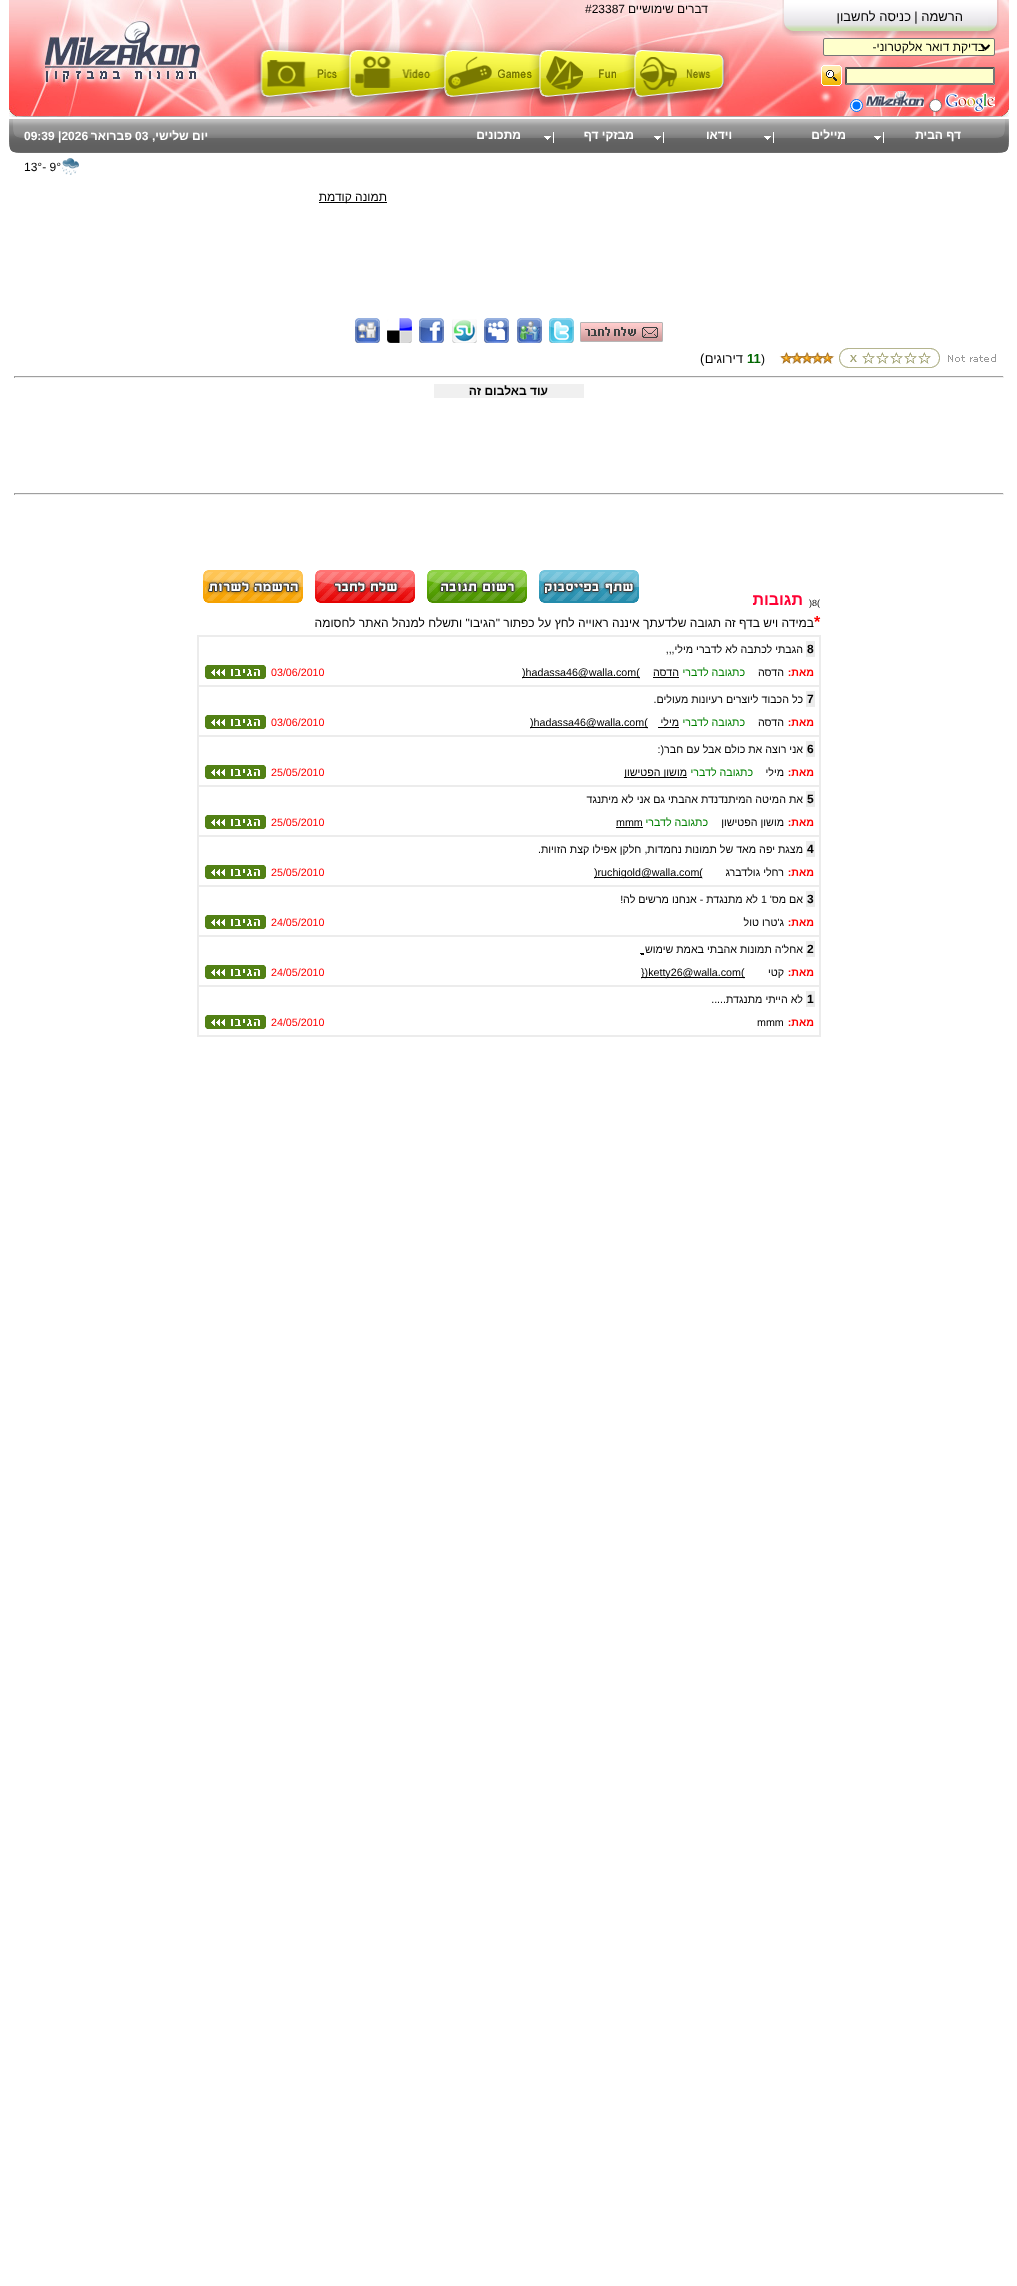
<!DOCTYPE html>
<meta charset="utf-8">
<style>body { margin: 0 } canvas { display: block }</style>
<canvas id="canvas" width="1017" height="2286"></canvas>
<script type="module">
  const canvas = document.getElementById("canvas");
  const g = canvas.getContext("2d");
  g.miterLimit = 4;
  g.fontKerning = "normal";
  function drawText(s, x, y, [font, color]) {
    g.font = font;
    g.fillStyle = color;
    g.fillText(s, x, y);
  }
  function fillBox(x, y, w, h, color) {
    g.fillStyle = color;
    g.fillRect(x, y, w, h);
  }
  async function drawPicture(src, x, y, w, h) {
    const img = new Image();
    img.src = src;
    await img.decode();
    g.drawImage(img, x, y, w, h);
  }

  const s1 = ["12px Liberation Sans", "#000000"];
  const s2 = ["13px Liberation Sans", "#000000"];
  const s3 = ["bold 12px Liberation Sans", "#FFFFFF"];
  const s4 = ["bold 13px Liberation Sans", "#006600"];
  const s5 = ["bold 12px Liberation Sans", "#000000"];
  const s6 = ["9px Liberation Sans", "#000000"];
  const s7 = ["bold 16px Liberation Sans", "#FF0033"];
  const s8 = ["bold 16px Liberation Sans", "#FF0000"];
  const s9 = ["10.7px Liberation Sans", "#000000"];
  const s10 = ["bold 10.7px Liberation Sans", "#FF0000"];
  const s11 = ["10.7px Liberation Sans", "#008000"];
  const s12 = ["10.7px Liberation Sans", "#FF0000"];

  fillBox(0, 0, 1017, 2286, "#FFFFFF");
  await drawPicture("pic1.png", 9, 0, 1000, 117);
  await drawPicture("pic2.png", 988, 0, 11, 36);
  await drawPicture("pic3.png", 793, 0, 195, 36);
  await drawPicture("pic4.png", 782, 0, 11, 36);
  g.direction = "rtl";
  drawText("דברים שימושיים", 708, 13, s1);
  g.direction = "ltr";
  drawText("#23387", 585, 13, s1);
  await drawPicture("pic5.png", 634, 42, 95, 65);
  await drawPicture("pic6.png", 539, 42, 95, 65);
  await drawPicture("pic7.png", 444, 42, 95, 65);
  await drawPicture("pic8.png", 349, 42, 95, 65);
  await drawPicture("pic9.png", 254, 42, 95, 65);
  g.direction = "rtl";
  drawText("הרשמה |", 963, 21, s2);
  drawText("כניסה לחשבון", 911, 21, s2);
  g.fillStyle = "#FFFFCC";
  g.beginPath();
  g.roundRect(823.5, 38.5, 171, 17, 1.5);
  g.fill();
  g.strokeStyle = "#767676";
  g.stroke();
  g.beginPath();
  g.moveTo(981.5, 45);
  g.lineTo(985.5, 49);
  g.lineTo(989.5, 45);
  g.strokeStyle = "#000000";
  g.lineWidth = 2;
  g.stroke();
  drawText("-בדיקת דואר אלקטרוני-", 989, 51, s1);
  fillBox(845, 67, 150, 18, "#FFFFCC");
  g.fillStyle = "#4F4F4F";
  g.beginPath();
  g.moveTo(845, 67);
  g.lineTo(995, 67);
  g.lineTo(993, 69);
  g.lineTo(847, 69);
  g.closePath();
  g.fill();
  g.fillStyle = "#767676";
  g.beginPath();
  g.moveTo(995, 67);
  g.lineTo(995, 85);
  g.lineTo(993, 83);
  g.lineTo(993, 69);
  g.closePath();
  g.fill();
  g.beginPath();
  g.moveTo(995, 85);
  g.lineTo(845, 85);
  g.lineTo(847, 83);
  g.lineTo(993, 83);
  g.closePath();
  g.fill();
  g.fillStyle = "#4F4F4F";
  g.beginPath();
  g.moveTo(845, 85);
  g.lineTo(845, 67);
  g.lineTo(847, 69);
  g.lineTo(847, 83);
  g.closePath();
  g.fill();
  await drawPicture("pic10.png", 821, 65, 21, 21);
  await drawPicture("pic11.png", 945, 90, 50, 22);
  g.fillStyle = "#FFFFFF";
  g.beginPath();
  g.arc(935.5, 105.5, 6, 0, Math.PI * 2);
  g.fill();
  g.strokeStyle = "#767676";
  g.lineWidth = 1;
  g.stroke();
  await drawPicture("pic12.png", 866, 91, 58, 16);
  g.beginPath();
  g.arc(856.5, 105.5, 6, 0, Math.PI * 2);
  g.fill();
  g.strokeStyle = "#0075FF";
  g.stroke();
  g.fillStyle = "#0075FF";
  g.beginPath();
  g.arc(856.5, 105.5, 4, 0, Math.PI * 2);
  g.fill();
  await drawPicture("pic13.png", 994, 119, 15, 34);
  await drawPicture("pic14.png", 273, 119, 721, 34);
  drawText("דף הבית", 961, 139, s3);
  await drawPicture("pic15.png", 874, 132, 10, 11);
  drawText("מיילים", 846, 139, s3);
  await drawPicture("pic15.png", 764, 132, 10, 11);
  drawText("וידאו", 732, 139, s3);
  await drawPicture("pic15.png", 654, 132, 10, 11);
  drawText("מבזקי דף", 634, 139, s3);
  await drawPicture("pic15.png", 544, 132, 10, 11);
  drawText("מתכונים", 521, 139, s3);
  await drawPicture("pic16.png", 24, 119, 249, 34);
  drawText("יום שלישי,", 208, 140, s3);
  g.direction = "ltr";
  drawText("03", 135, 140, s3);
  g.direction = "rtl";
  drawText("פברואר", 132, 140, s3);
  g.direction = "ltr";
  drawText("09:39 |2026", 24, 140, s3);
  await drawPicture("pic17.png", 9, 119, 15, 34);
  await drawPicture("pic18.png", 62, 158, 17, 17);
  drawText("13°- 9°", 24, 171, s1);
  fillBox(319, 202, 68, 1, "#000000");
  g.direction = "rtl";
  drawText("תמונה קודמת", 387, 201, s1);
  await drawPicture("pic19.png", 580, 322, 83, 20);
  await drawPicture("pic20.png", 549, 318, 25, 25);
  await drawPicture("pic21.png", 517, 318, 25, 25);
  await drawPicture("pic22.png", 484, 318, 25, 25);
  await drawPicture("pic23.png", 452, 319, 25, 24);
  await drawPicture("pic24.png", 419, 318, 25, 25);
  await drawPicture("pic25.png", 387, 318, 25, 25);
  await drawPicture("pic26.png", 355, 318, 25, 25);
  await drawPicture("pic27.png", 948, 354, 48, 8);
  await drawPicture("pic28.png", 839, 348, 101, 20);
  await drawPicture("pic29.png", 779, 352, 56, 12);
  g.direction = "ltr";
  drawText("11", 747, 363, s4);
  drawText(")", 761, 363, s1);
  g.direction = "rtl";
  drawText("דירוגים", 743, 363, s2);
  g.direction = "ltr";
  drawText("(", 700, 363, s2);
  fillBox(14, 376, 990, 1, "#9F9F9F");
  fillBox(1003, 376, 1, 2, "#EEEEEE");
  fillBox(14, 377, 990, 1, "#EEEEEE");
  fillBox(14, 376, 1, 2, "#9F9F9F");
  fillBox(434, 384, 150, 14, "#F0F0F0");
  g.direction = "rtl";
  drawText("עוד באלבום זה", 548, 395, s5);
  fillBox(14, 493, 990, 1, "#9F9F9F");
  fillBox(1003, 493, 1, 2, "#EEEEEE");
  fillBox(14, 494, 990, 1, "#EEEEEE");
  fillBox(14, 493, 1, 2, "#9F9F9F");
  g.direction = "ltr";
  drawText(")8(", 809, 606, s6);
  g.direction = "rtl";
  drawText("תגובות", 803, 605, s7);
  await drawPicture("pic30.png", 539, 570, 100, 33);
  await drawPicture("pic31.png", 427, 570, 100, 33);
  await drawPicture("pic32.png", 315, 570, 100, 33);
  await drawPicture("pic33.png", 203, 570, 100, 33);
  g.direction = "ltr";
  drawText("*", 814, 627, s8);
  g.direction = "rtl";
  drawText("במידה ויש בדף זה תגובה שלדעתך איננה ראוייה לחץ על כפתור \"הגיבו\" ותשלח למנהל האתר לחסומה", 814, 627, s1);
  fillBox(197, 635, 624, 2, "#ECECEC");
  fillBox(197, 685, 624, 2, "#ECECEC");
  fillBox(197, 735, 624, 2, "#ECECEC");
  fillBox(197, 785, 624, 2, "#ECECEC");
  fillBox(197, 835, 624, 2, "#ECECEC");
  fillBox(197, 885, 624, 2, "#ECECEC");
  fillBox(197, 935, 624, 2, "#ECECEC");
  fillBox(197, 985, 624, 2, "#ECECEC");
  fillBox(819, 985, 2, 52, "#ECECEC");
  fillBox(819, 935, 2, 52, "#ECECEC");
  fillBox(819, 885, 2, 52, "#ECECEC");
  fillBox(819, 835, 2, 52, "#ECECEC");
  fillBox(819, 785, 2, 52, "#ECECEC");
  fillBox(819, 735, 2, 52, "#ECECEC");
  fillBox(819, 685, 2, 52, "#ECECEC");
  fillBox(819, 635, 2, 52, "#ECECEC");
  fillBox(197, 1035, 624, 2, "#ECECEC");
  fillBox(197, 985, 2, 52, "#ECECEC");
  fillBox(197, 935, 2, 52, "#ECECEC");
  fillBox(197, 885, 2, 52, "#ECECEC");
  fillBox(197, 835, 2, 52, "#ECECEC");
  fillBox(197, 785, 2, 52, "#ECECEC");
  fillBox(197, 735, 2, 52, "#ECECEC");
  fillBox(197, 685, 2, 52, "#ECECEC");
  fillBox(197, 635, 2, 52, "#ECECEC");
  fillBox(806, 641, 9, 16, "#ECECEC");
  g.direction = "ltr";
  drawText("8", 807, 653, s5);
  g.direction = "rtl";
  drawText("הגבתי לכתבה לא לדברי מילי,,,", 803, 653, s9);
  drawText("מאת:", 814, 676, s10);
  drawText("הדסה", 784, 676, s9);
  drawText("כתגובה לדברי", 745, 676, s11);
  drawText("הדסה", 679, 676, s9);
  fillBox(653, 677, 26, 1, "#000000");
  fillBox(522, 677, 118, 1, "#000000");
  g.direction = "ltr";
  drawText(")hadassa46@walla.com(", 522, 676, s9);
  drawText("03/06/2010", 271, 676, s12);
  await drawPicture("pic34.png", 205, 665, 61, 14);
  fillBox(806, 691, 9, 16, "#ECECEC");
  drawText("7", 807, 703, s5);
  g.direction = "rtl";
  drawText("כל הכבוד ליוצרים רעיונות מעולים.", 803, 703, s9);
  drawText("מאת:", 814, 726, s10);
  drawText("הדסה", 784, 726, s9);
  drawText("כתגובה לדברי", 745, 726, s11);
  drawText("מילי", 679, 726, s9);
  fillBox(658, 727, 21, 1, "#000000");
  fillBox(530, 727, 118, 1, "#000000");
  g.direction = "ltr";
  drawText(")hadassa46@walla.com(", 530, 726, s9);
  drawText("03/06/2010", 271, 726, s12);
  await drawPicture("pic34.png", 205, 715, 61, 14);
  fillBox(806, 741, 9, 16, "#ECECEC");
  drawText("6", 807, 753, s5);
  g.direction = "rtl";
  drawText("אני רוצה את כולם אבל עם חבר(:", 803, 753, s9);
  drawText("מאת:", 814, 776, s10);
  drawText("מילי", 784, 776, s9);
  drawText("כתגובה לדברי", 753, 776, s11);
  fillBox(624, 777, 63, 1, "#000000");
  drawText("מושון הפטישון", 687, 776, s9);
  g.direction = "ltr";
  drawText("25/05/2010", 271, 776, s12);
  await drawPicture("pic34.png", 205, 765, 61, 14);
  fillBox(806, 791, 9, 16, "#ECECEC");
  drawText("5", 807, 803, s5);
  g.direction = "rtl";
  drawText("את המיטה המיתנדנדת אהבתי גם אני לא מיתנגד", 803, 803, s9);
  drawText("מאת:", 814, 826, s10);
  drawText("מושון הפטישון", 784, 826, s9);
  drawText("כתגובה לדברי", 708, 826, s11);
  g.direction = "ltr";
  drawText("mmm", 616, 826, s9);
  fillBox(616, 827, 27, 1, "#000000");
  drawText("25/05/2010", 271, 826, s12);
  await drawPicture("pic34.png", 205, 815, 61, 14);
  fillBox(806, 841, 9, 16, "#ECECEC");
  drawText("4", 807, 853, s5);
  g.direction = "rtl";
  drawText("מצגת יפה מאד של תמונות נחמדות, חלקן אפילו קצת הזויות.", 803, 853, s9);
  drawText("מאת:", 814, 876, s10);
  drawText("רחלי גולדברג", 784, 876, s9);
  fillBox(594, 877, 108, 1, "#000000");
  g.direction = "ltr";
  drawText(")ruchigold@walla.com(", 594, 876, s9);
  drawText("25/05/2010", 271, 876, s12);
  await drawPicture("pic34.png", 205, 865, 61, 14);
  fillBox(806, 891, 9, 16, "#ECECEC");
  drawText("3", 807, 903, s5);
  g.direction = "rtl";
  drawText("אם מס'", 803, 903, s9);
  g.direction = "ltr";
  drawText("1", 761, 903, s9);
  g.direction = "rtl";
  drawText("לא מתנגדת - אנחנו מרשים לה!", 758, 903, s9);
  drawText("מאת:", 814, 926, s10);
  drawText("ג'טרו טול", 784, 926, s9);
  g.direction = "ltr";
  drawText("24/05/2010", 271, 926, s12);
  await drawPicture("pic34.png", 205, 915, 61, 14);
  fillBox(806, 941, 9, 16, "#ECECEC");
  drawText("2", 807, 953, s5);
  g.direction = "rtl";
  drawText("אחל'ה תמונות אהבתי באמת שימוש ֱֱֱֱֱֱֱֱֱֱֱ", 803, 953, s9);
  drawText("מאת:", 814, 976, s10);
  drawText("קטי", 784, 976, s9);
  fillBox(641, 977, 104, 1, "#000000");
  g.direction = "ltr";
  drawText("})ketty26@walla.com(", 641, 976, s9);
  drawText("24/05/2010", 271, 976, s12);
  await drawPicture("pic34.png", 205, 965, 61, 14);
  fillBox(806, 991, 9, 16, "#ECECEC");
  drawText("1", 807, 1003, s5);
  g.direction = "rtl";
  drawText("לא הייתי מתנגדת.....", 803, 1003, s9);
  drawText("מאת:", 814, 1026, s10);
  g.direction = "ltr";
  drawText("mmm", 757, 1026, s9);
  drawText("24/05/2010", 271, 1026, s12);
  await drawPicture("pic34.png", 205, 1015, 61, 14);
</script>
